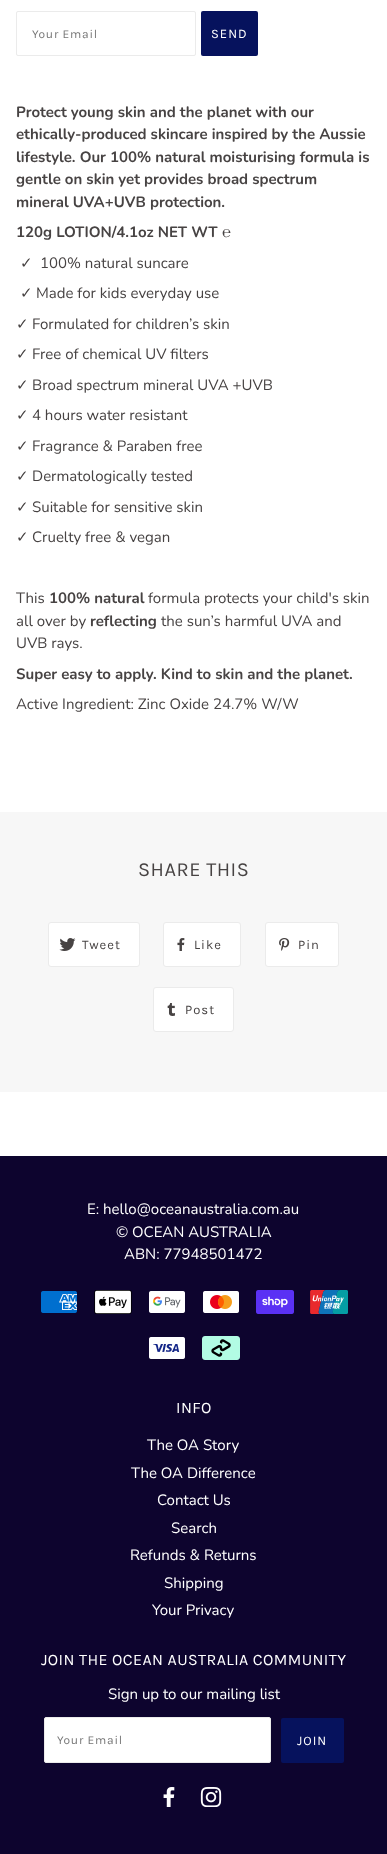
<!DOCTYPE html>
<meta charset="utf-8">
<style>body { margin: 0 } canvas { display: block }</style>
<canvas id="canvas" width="387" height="1854"></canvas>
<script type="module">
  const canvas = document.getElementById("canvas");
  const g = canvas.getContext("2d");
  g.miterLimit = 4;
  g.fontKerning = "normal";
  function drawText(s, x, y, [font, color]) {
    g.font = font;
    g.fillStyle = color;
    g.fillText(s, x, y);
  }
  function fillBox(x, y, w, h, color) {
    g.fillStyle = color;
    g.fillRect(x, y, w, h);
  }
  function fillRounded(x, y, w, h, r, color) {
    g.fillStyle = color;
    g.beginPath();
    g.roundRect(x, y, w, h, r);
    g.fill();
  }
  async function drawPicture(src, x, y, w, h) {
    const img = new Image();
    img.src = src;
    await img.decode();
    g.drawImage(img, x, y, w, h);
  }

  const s1 = ["12px Karla", "#757575"];
  const s2 = ["13px Karla", "#FFFFFF"];
  const s3 = ["bold 15px Nunito", "#474343"];
  const s4 = ["bold 15px Liberation Sans", "#474343"];
  const s5 = ["15px DejaVu Sans", "#474343"];
  const s6 = ["15px Nunito", "#474343"];
  const s7 = ["20px Karla", "#474343"];
  const s8 = ["13px Karla", "#474343"];
  const s9 = ["15px Nunito", "#FFFFFF"];
  const s10 = ["16px Karla", "#FFFFFF"];

  fillBox(0, 0, 387, 1854, "#FFFFFF");
  g.beginPath();
  g.roundRect(16.5, 11.5, 179, 44, 1.5);
  g.strokeStyle = "#EBEBEB";
  g.stroke();
  g.letterSpacing = "0.75px";
  drawText("Your Email", 32, 38, s1);
  fillRounded(201, 11, 57, 45, 2, "#06125D");
  g.letterSpacing = "1px";
  drawText("SEND", 211, 38, s2);
  g.letterSpacing = "0px";
  drawText("Protect young skin and the planet with our", 16, 117, s3);
  drawText("ethically-produced skincare inspired by the Aussie", 16, 139, s3);
  drawText("lifestyle. Our 100% natural moisturising formula is", 16, 162, s3);
  drawText("gentle on skin yet provides broad spectrum", 16, 184, s3);
  drawText("mineral UVA+UVB protection.", 16, 207, s3);
  drawText("120g LOTION/4.1oz NET WT", 16, 237, s3);
  drawText("℮", 222, 237, s4);
  drawText("✓", 20, 268, s5);
  drawText("100% natural suncare", 40, 268, s6);
  drawText("✓", 20, 298, s5);
  drawText("Made for kids everyday use", 36, 298, s6);
  drawText("✓", 16, 329, s5);
  drawText("Formulated for children’s skin", 32, 329, s6);
  drawText("✓", 16, 359, s5);
  drawText("Free of chemical UV filters", 32, 359, s6);
  drawText("✓", 16, 390, s5);
  drawText("Broad spectrum mineral UVA +UVB", 32, 390, s6);
  drawText("✓", 16, 420, s5);
  drawText("4 hours water resistant", 32, 420, s6);
  drawText("✓", 16, 451, s5);
  drawText("Fragrance & Paraben free", 32, 451, s6);
  drawText("✓", 16, 481, s5);
  drawText("Dermatologically tested", 32, 481, s6);
  drawText("✓", 16, 512, s5);
  drawText("Suitable for sensitive skin", 32, 512, s6);
  drawText("✓", 16, 542, s5);
  drawText("Cruelty free & vegan", 32, 542, s6);
  drawText("This", 16, 603, s6);
  drawText("100% natural", 49, 603, s3);
  drawText("formula protects your child's skin", 148, 603, s6);
  drawText("all over by", 16, 626, s6);
  drawText("reflecting", 90, 626, s3);
  drawText("the sun’s harmful UVA and", 161, 626, s6);
  drawText("UVB rays.", 16, 648, s6);
  drawText("Super easy to apply. Kind to skin and the planet.", 16, 679, s3);
  drawText("Active Ingredient: Zinc Oxide 24.7% W/W", 16, 709, s6);
  fillBox(0, 812, 387, 280, "#F7F7F7");
  g.letterSpacing = "0.5px";
  drawText("SHARE THIS", 138, 876, s7);
  g.fillStyle = "#FFFFFF";
  g.beginPath();
  g.roundRect(48.5, 922.5, 91, 44, 2.5);
  g.fill();
  g.stroke();
  await drawPicture("pic1.png", 59, 938, 17, 13);
  g.letterSpacing = "1px";
  drawText("Tweet", 82, 949, s8);
  g.fillStyle = "#FFFFFF";
  g.beginPath();
  g.roundRect(163.5, 922.5, 77, 44, 2.5);
  g.fill();
  g.stroke();
  await drawPicture("pic2.png", 177, 938, 8, 13);
  drawText("Like", 194, 949, s8);
  g.fillStyle = "#FFFFFF";
  g.beginPath();
  g.roundRect(265.5, 922.5, 73, 44, 2.5);
  g.fill();
  g.stroke();
  await drawPicture("pic3.png", 279, 938, 11, 13);
  drawText("Pin", 298, 949, s8);
  g.fillStyle = "#FFFFFF";
  g.beginPath();
  g.roundRect(153.5, 987.5, 80, 44, 2.5);
  g.fill();
  g.stroke();
  await drawPicture("pic4.png", 167, 1003, 8, 13);
  drawText("Post", 185, 1014, s8);
  fillBox(0, 1156, 387, 698, "#0D042E");
  g.letterSpacing = "0px";
  drawText("E: hello@oceanaustralia.com.au", 87, 1214, s9);
  drawText("© OCEAN AUSTRALIA", 116, 1237, s9);
  drawText("ABN: 77948501472", 124, 1259, s9);
  await drawPicture("pic5.png", 41, 1291, 36, 22);
  await drawPicture("pic6.png", 94, 1290, 38, 24);
  await drawPicture("pic7.png", 149, 1291, 36, 22);
  await drawPicture("pic8.png", 203, 1291, 36, 22);
  await drawPicture("pic9.png", 256, 1290, 38, 24);
  await drawPicture("pic10.png", 310, 1290, 38, 24);
  await drawPicture("pic11.png", 149, 1337, 36, 22);
  await drawPicture("pic12.png", 202, 1336, 38, 24);
  g.letterSpacing = "0.4px";
  drawText("INFO", 176, 1413, s10);
  g.letterSpacing = "0px";
  drawText("The OA Story", 147, 1450, s9);
  drawText("The OA Difference", 131, 1478, s9);
  drawText("Contact Us", 157, 1505, s9);
  drawText("Search", 171, 1533, s9);
  drawText("Refunds & Returns", 130, 1560, s9);
  drawText("Shipping", 164, 1588, s9);
  drawText("Your Privacy", 152, 1615, s9);
  g.letterSpacing = "0.4px";
  drawText("JOIN THE OCEAN AUSTRALIA COMMUNITY", 41, 1665, s10);
  g.letterSpacing = "0px";
  drawText("Sign up to our mailing list", 108, 1699, s9);
  g.beginPath();
  g.roundRect(44.5, 1717.5, 226, 45, 1.5);
  g.fill();
  g.stroke();
  g.letterSpacing = "0.75px";
  drawText("Your Email", 57, 1744, s1);
  fillRounded(281, 1718, 63, 45, 2, "#06125D");
  g.letterSpacing = "1px";
  drawText("JOIN", 297, 1745, s2);
  await drawPicture("pic13.png", 163, 1787, 12, 20);
  await drawPicture("pic14.png", 200, 1787, 22, 20);
</script>
